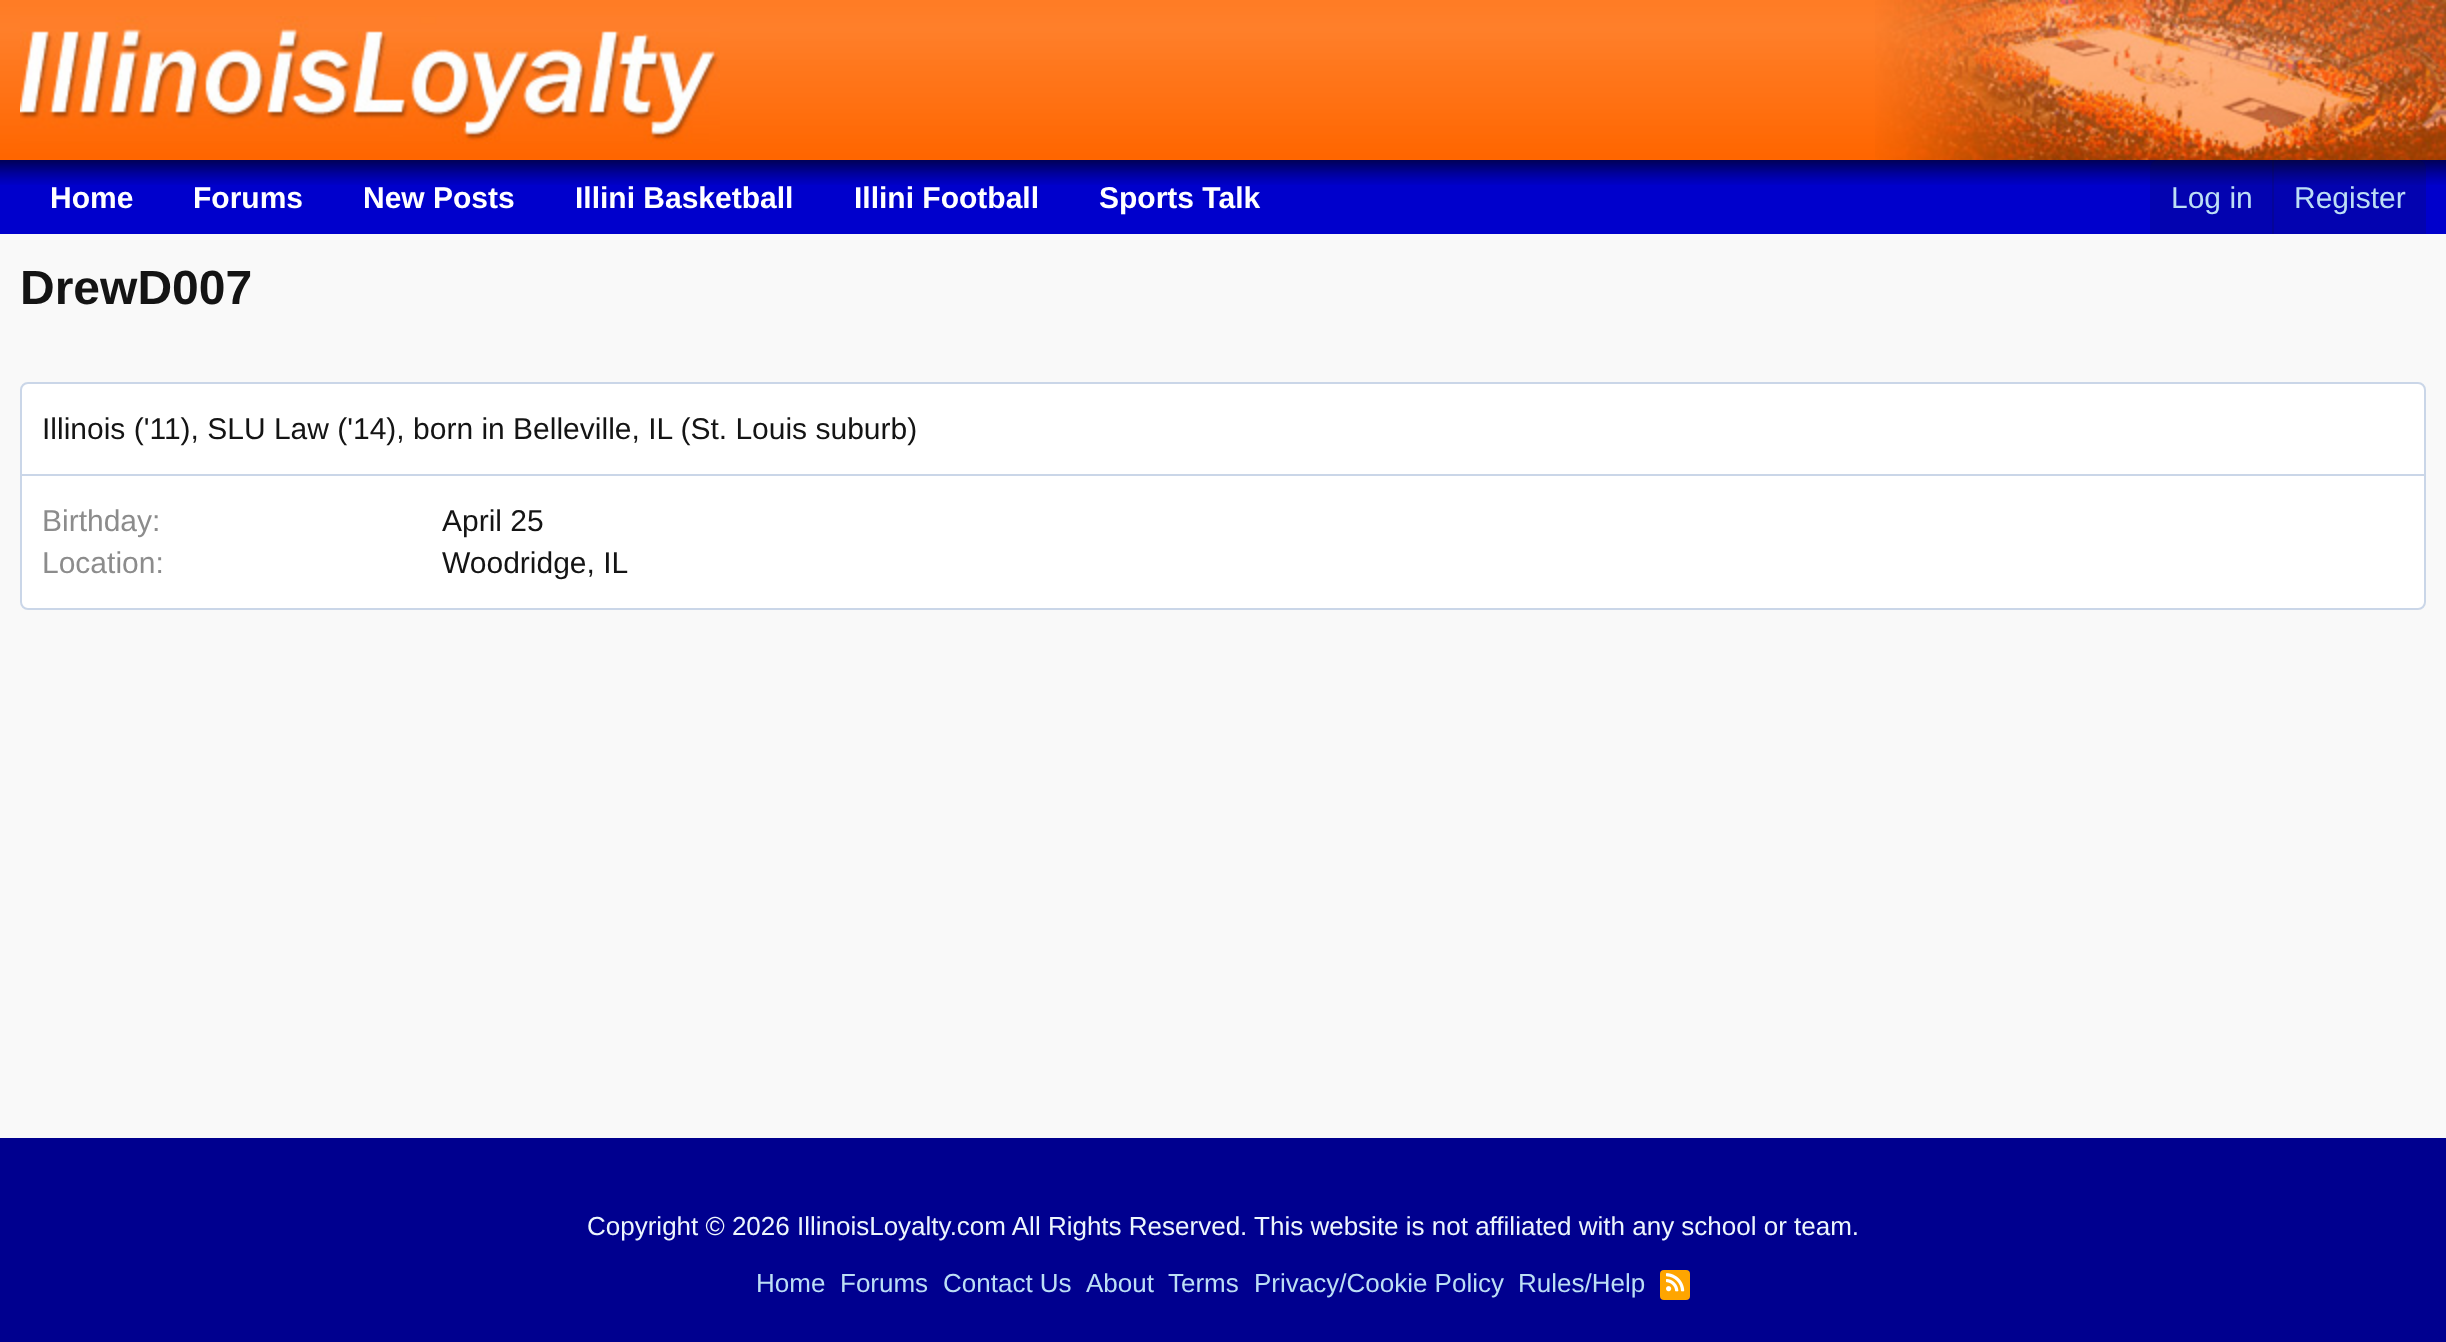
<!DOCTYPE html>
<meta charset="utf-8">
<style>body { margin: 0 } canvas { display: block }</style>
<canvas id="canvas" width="2446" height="1342"></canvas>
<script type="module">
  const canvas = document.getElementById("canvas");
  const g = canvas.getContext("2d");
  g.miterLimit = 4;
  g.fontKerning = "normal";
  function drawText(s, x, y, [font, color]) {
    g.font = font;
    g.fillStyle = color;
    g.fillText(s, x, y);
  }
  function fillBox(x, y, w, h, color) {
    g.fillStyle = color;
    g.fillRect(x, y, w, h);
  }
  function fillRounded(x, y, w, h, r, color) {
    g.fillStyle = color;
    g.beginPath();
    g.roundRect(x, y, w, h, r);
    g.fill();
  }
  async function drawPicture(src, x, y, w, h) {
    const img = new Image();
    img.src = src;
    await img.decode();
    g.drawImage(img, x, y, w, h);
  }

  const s1 = ["bold 30px Liberation Sans", "#FFFFFF"];
  const s2 = ["30px Liberation Sans", "#BCDEF5"];
  const s3 = ["bold 48px Liberation Sans", "#141414"];
  const s4 = ["30px Liberation Sans", "#141414"];
  const s5 = ["30px Liberation Sans", "#8C8C8C"];
  const s6 = ["26px Liberation Sans", "#EDF6FD"];
  const s7 = ["26px Liberation Sans", "#BCDEF5"];

  fillBox(0, 0, 2446, 1342, "#F9F9F9");
  await drawPicture("pic1.png", 0, 0, 1875, 160);
  await drawPicture("pic2.png", 20, 16, 700, 128);
  await drawPicture("pic3.png", 1875, 0, 571, 160);
  fillBox(0, 185, 2446, 49, "#0000CC");
  await drawPicture("pic4.png", 0, 160, 2446, 25);
  drawText("Home", 50, 208, s1);
  drawText("Forums", 193, 208, s1);
  drawText("New Posts", 363, 208, s1);
  drawText("Illini Basketball", 575, 208, s1);
  drawText("Illini Football", 854, 208, s1);
  drawText("Sports Talk", 1099, 208, s1);
  g.fillStyle = "rgba(20, 20, 20, 0.15)";
  g.beginPath();
  g.roundRect(2150, 160, 276, 74, [8, 8, 0, 0]);
  g.fill();
  drawText("Log in", 2171, 208, s2);
  fillBox(2272, 160, 2, 74, "rgba(20, 20, 20, 0.15)");
  drawText("Register", 2294, 208, s2);
  drawText("DrewD007", 20, 304, s3);
  g.fillStyle = "#FFFFFF";
  g.beginPath();
  g.roundRect(21, 383, 2404, 226, 7);
  g.fill();
  g.strokeStyle = "#CAD6E8";
  g.lineWidth = 2;
  g.stroke();
  drawText("Illinois ('11), SLU Law ('14), born in Belleville, IL (St. Louis suburb)", 42, 439, s4);
  fillBox(22, 474, 2402, 2, "#CAD6E8");
  drawText("Birthday:", 42, 531, s5);
  drawText("April 25", 442, 531, s4);
  drawText("Location:", 42, 573, s5);
  drawText("Woodridge, IL", 442, 573, s4);
  fillBox(0, 1138, 2446, 204, "#00008F");
  drawText("Copyright © 2026 IllinoisLoyalty.com All Rights Reserved. This website is not affiliated with any school or team.", 587, 1235, s6);
  drawText("Home", 756, 1292, s7);
  drawText("Forums", 840, 1292, s7);
  drawText("Contact Us", 943, 1292, s7);
  drawText("About", 1086, 1292, s7);
  drawText("Terms", 1168, 1292, s7);
  drawText("Privacy/Cookie Policy", 1254, 1292, s7);
  drawText("Rules/Help", 1518, 1292, s7);
  fillRounded(1660, 1270, 30, 30, 4, "#FFA500");
  await drawPicture("pic5.png", 1666, 1273, 19, 19);
</script>
